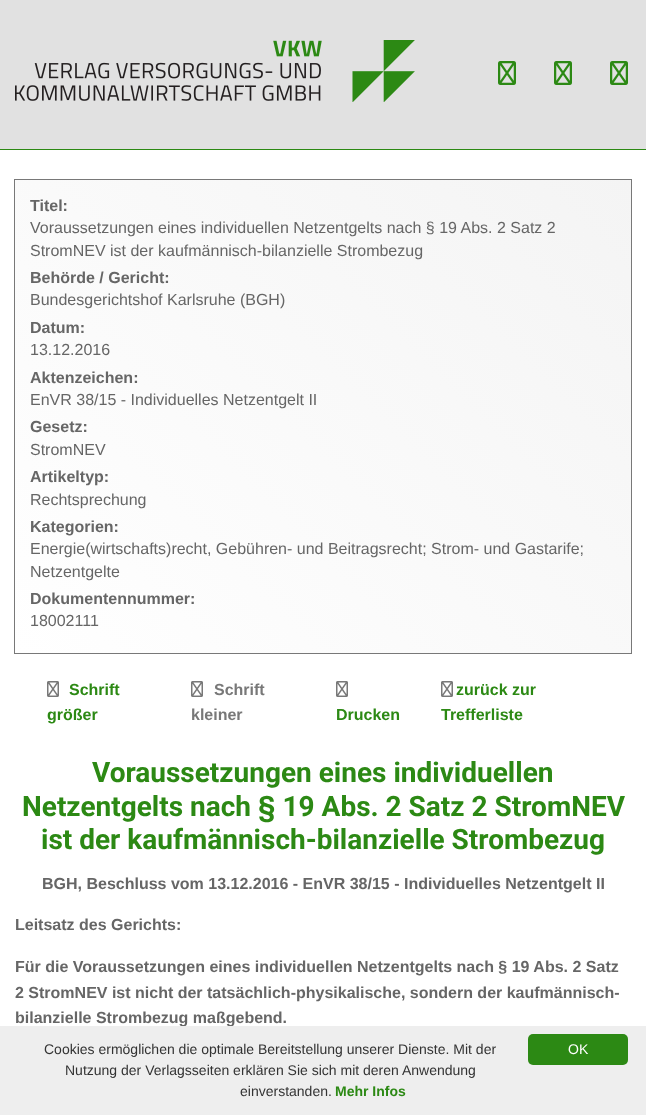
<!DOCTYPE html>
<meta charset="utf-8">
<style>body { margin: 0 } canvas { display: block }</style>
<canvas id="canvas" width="646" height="1115"></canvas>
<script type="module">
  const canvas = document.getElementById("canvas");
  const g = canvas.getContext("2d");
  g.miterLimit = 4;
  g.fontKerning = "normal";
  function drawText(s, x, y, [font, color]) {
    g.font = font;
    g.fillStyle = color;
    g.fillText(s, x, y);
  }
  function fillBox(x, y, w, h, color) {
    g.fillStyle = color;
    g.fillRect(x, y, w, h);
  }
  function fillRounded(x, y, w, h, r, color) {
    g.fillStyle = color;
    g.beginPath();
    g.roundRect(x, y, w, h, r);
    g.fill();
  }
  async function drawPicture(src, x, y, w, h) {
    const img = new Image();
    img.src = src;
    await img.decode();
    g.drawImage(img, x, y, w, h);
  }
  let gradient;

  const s1 = ["bold 16px Liberation Sans", "#666666"];
  const s2 = ["16px Liberation Sans", "#666666"];
  const s3 = ["bold 16px Liberation Sans", "#2C8914"];
  const s4 = ["bold 16px Liberation Sans", "#787878"];
  const s5 = ["bold 28px Roboto", "#2C8914"];
  const s6 = ["14px Liberation Sans", "#333333"];
  const s7 = ["bold 14px Liberation Sans", "#2C8914"];
  const s8 = ["14px Liberation Sans", "#FFFFFF"];

  fillBox(0, 0, 646, 1115, "#FFFFFF");
  fillBox(0, 0, 646, 149, "#E1E1E1");
  fillBox(0, 149, 646, 1, "#2C8914");
  await drawPicture("pic1.png", 15, 40, 400, 62);
  await drawPicture("pic2.png", 498, 61, 18, 24);
  await drawPicture("pic2.png", 554, 61, 18, 24);
  await drawPicture("pic2.png", 610, 61, 18, 24);
  gradient = g.createLinearGradient(51, 689, 595, 144);
  gradient.addColorStop(0, "#FFFFFF");
  gradient.addColorStop(1, "#F4F4F4");
  g.fillStyle = gradient;
  g.fillRect(15, 180, 616, 473);
  g.strokeStyle = "#787878";
  g.strokeRect(14.5, 179.5, 617, 474);
  drawText("Titel:", 30, 211, s1);
  drawText("Voraussetzungen eines individuellen Netzentgelts nach § 19 Abs. 2 Satz 2", 30, 233, s2);
  drawText("StromNEV ist der kaufmännisch-bilanzielle Strombezug", 30, 256, s2);
  drawText("Behörde / Gericht:", 30, 283, s1);
  drawText("Bundesgerichtshof Karlsruhe (BGH)", 30, 305, s2);
  drawText("Datum:", 30, 333, s1);
  drawText("13.12.2016", 30, 355, s2);
  drawText("Aktenzeichen:", 30, 383, s1);
  drawText("EnVR 38/15 - Individuelles Netzentgelt II", 30, 405, s2);
  drawText("Gesetz:", 30, 432, s1);
  drawText("StromNEV", 30, 455, s2);
  drawText("Artikeltyp:", 30, 482, s1);
  drawText("Rechtsprechung", 30, 505, s2);
  drawText("Kategorien:", 30, 532, s1);
  drawText("Energie(wirtschafts)recht, Gebühren- und Beitragsrecht; Strom- und Gastarife;", 30, 554, s2);
  drawText("Netzentgelte", 30, 577, s2);
  drawText("Dokumentennummer:", 30, 604, s1);
  drawText("18002111", 30, 626, s2);
  await drawPicture("pic3.png", 47, 681, 12, 16);
  drawText("Schrift", 69, 695, s3);
  drawText("größer", 47, 720, s3);
  await drawPicture("pic3.png", 191, 681, 12, 16);
  drawText("Schrift", 214, 695, s4);
  drawText("kleiner", 191, 720, s4);
  await drawPicture("pic3.png", 336, 681, 12, 16);
  drawText("Drucken", 336, 720, s3);
  await drawPicture("pic3.png", 441, 681, 12, 16);
  drawText("zurück zur", 456, 695, s3);
  drawText("Trefferliste", 441, 720, s3);
  drawText("Voraussetzungen eines individuellen", 92, 782, s5);
  drawText("Netzentgelts nach § 19 Abs. 2 Satz 2 StromNEV", 22, 816, s5);
  drawText("ist der kaufmännisch-bilanzielle Strombezug", 41, 849, s5);
  drawText("BGH, Beschluss vom 13.12.2016 - EnVR 38/15 - Individuelles Netzentgelt II", 42, 889, s1);
  drawText("Leitsatz des Gerichts:", 15, 930, s1);
  drawText("Für die Voraussetzungen eines individuellen Netzentgelts nach § 19 Abs. 2 Satz", 15, 972, s1);
  drawText("2 StromNEV ist nicht der tatsächlich-physikalische, sondern der kaufmännisch-", 15, 998, s1);
  drawText("bilanzielle Strombezug maßgebend.", 15, 1023, s1);
  fillBox(0, 1026, 646, 89, "#EEEEEE");
  drawText("Cookies ermöglichen die optimale Bereitstellung unserer Dienste. Mit der", 44, 1054, s6);
  drawText("Nutzung der Verlagsseiten erklären Sie sich mit deren Anwendung", 65, 1075, s6);
  drawText("einverstanden.", 240, 1096, s6);
  drawText("Mehr Infos", 335, 1096, s7);
  fillRounded(528, 1034, 100, 31, 5, "#2C8914");
  drawText("OK", 568, 1054, s8);
</script>
